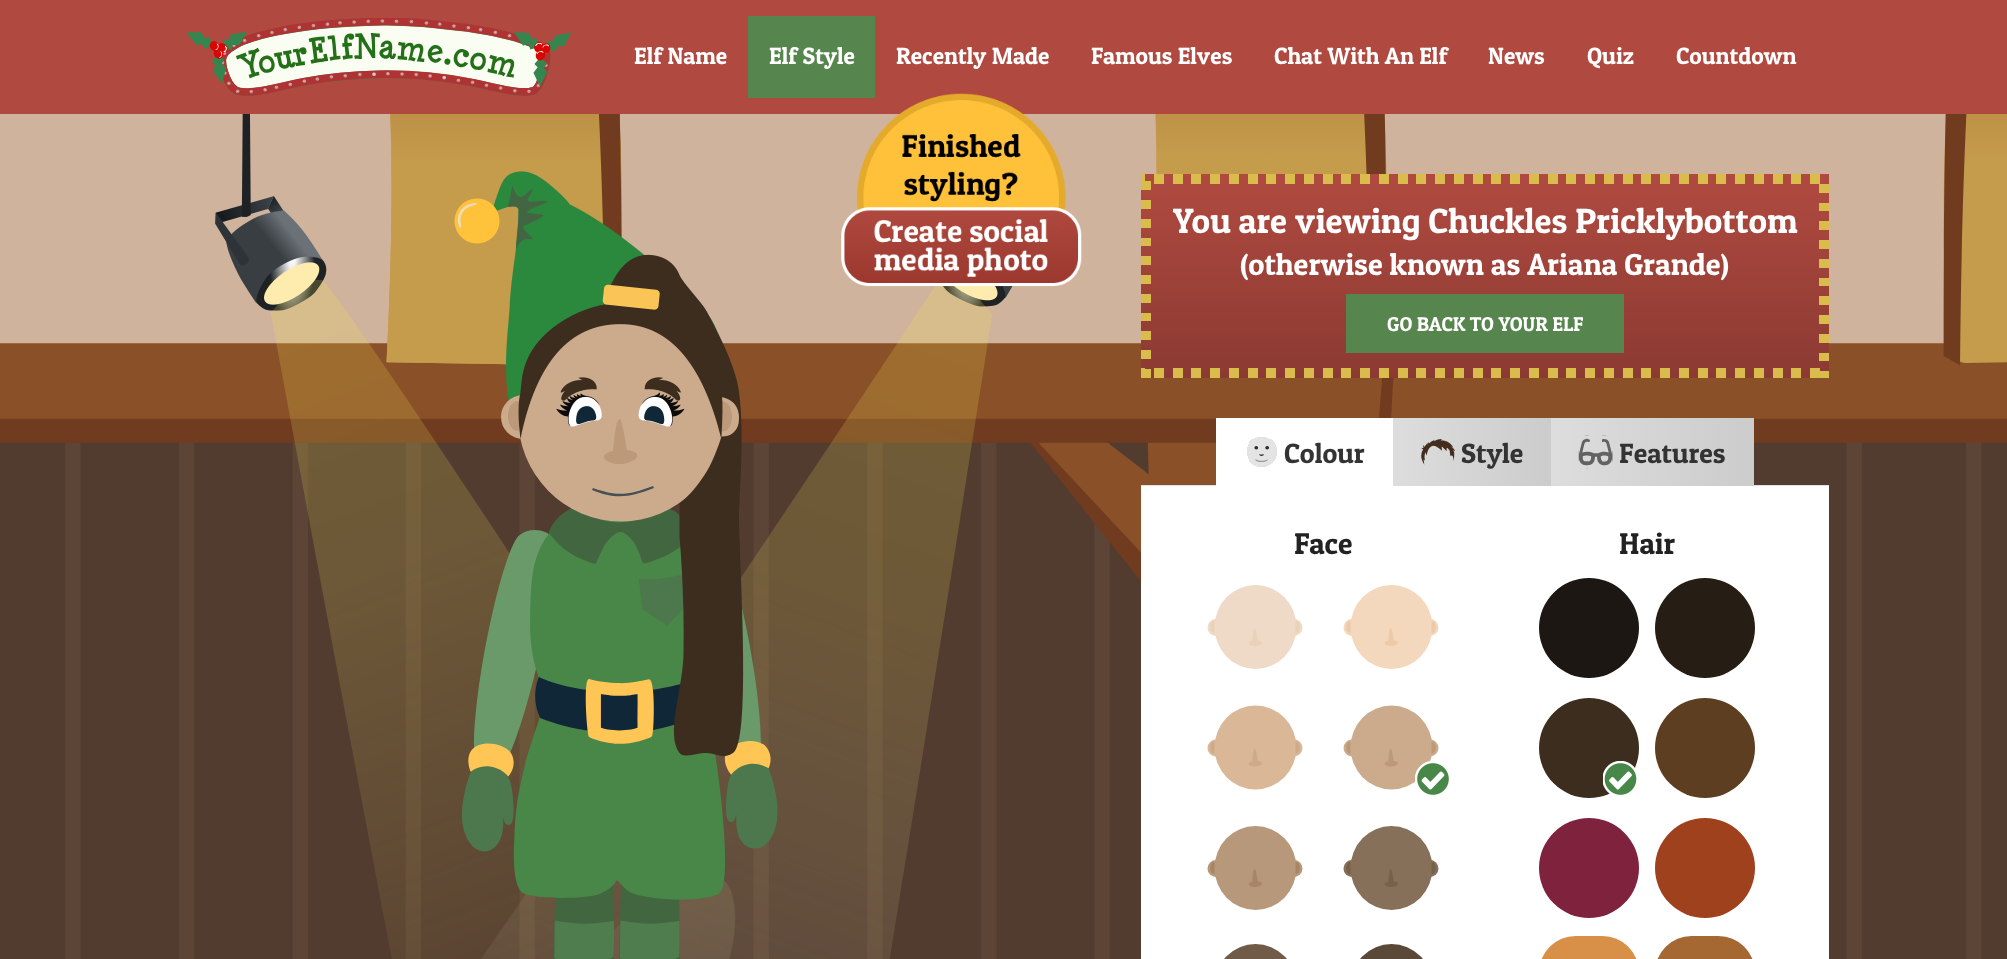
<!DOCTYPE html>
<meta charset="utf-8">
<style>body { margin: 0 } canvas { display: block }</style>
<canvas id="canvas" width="2007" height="959"></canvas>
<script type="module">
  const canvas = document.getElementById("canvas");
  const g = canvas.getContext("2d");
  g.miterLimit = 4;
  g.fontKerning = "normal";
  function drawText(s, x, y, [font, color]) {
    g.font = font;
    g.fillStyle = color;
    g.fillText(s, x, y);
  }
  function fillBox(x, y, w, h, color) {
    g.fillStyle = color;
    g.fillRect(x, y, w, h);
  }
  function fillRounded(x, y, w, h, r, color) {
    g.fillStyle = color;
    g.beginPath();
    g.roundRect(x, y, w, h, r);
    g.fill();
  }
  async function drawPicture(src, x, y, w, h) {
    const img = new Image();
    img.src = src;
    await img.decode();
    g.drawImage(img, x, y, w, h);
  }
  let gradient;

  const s1 = ["23.5px Patua One", "#FFFFFF"];
  const s2 = ["35px Patua One", "#FFFFFF"];
  const s3 = ["30.6px Patua One", "#FFFFFF"];
  const s4 = ["20px Patua One", "#FFFFFF"];
  const s5 = ["28px Patua One", "#333333"];
  const s6 = ["30px Patua One", "#222222"];

  fillBox(0, 0, 2007, 959, "#FFFFFF");
  await drawPicture("pic1.png", 0, 114, 2007, 845);
  fillBox(0, 0, 2007, 114, "#B04A40");
  await drawPicture("pic2.png", 186, 18, 385, 78);
  drawText("Elf Name", 634, 64, s1);
  fillBox(748, 16, 127, 82, "#57854E");
  drawText("Elf Style", 769, 64, s1);
  drawText("Recently Made", 896, 64, s1);
  drawText("Famous Elves", 1091, 64, s1);
  drawText("Chat With An Elf", 1274, 64, s1);
  drawText("News", 1488, 64, s1);
  drawText("Quiz", 1587, 64, s1);
  drawText("Countdown", 1676, 64, s1);
  await drawPicture("pic4.png", 215, 114, 798, 845);
  await drawPicture("pic3.png", 841, 93, 241, 194);
  await drawPicture("pic5.png", 454, 171, 265, 271);
  g.fillStyle = "#CCAB8C";
  g.beginPath();
  g.arc(523, 417, 22, 0, Math.PI * 2);
  g.fill();
  g.beginPath();
  g.arc(718, 417, 22, 0, Math.PI * 2);
  g.fill();
  await drawPicture("pic9.png", 461, 508, 317, 451);
  g.beginPath();
  g.ellipse(621, 416.5, 103, 105, 0, 0, Math.PI * 2);
  g.fill();
  g.fillStyle = "#BB9979";
  g.beginPath();
  g.moveTo(517.5, 431);
  g.bezierCurveTo(520.5, 431, 519, 423.5, 519, 416);
  g.bezierCurveTo(519, 408.5, 520.5, 401, 517.5, 401);
  g.bezierCurveTo(512.5, 401, 508, 408, 508, 416);
  g.bezierCurveTo(508, 424.5, 512.5, 431, 517.5, 431);
  g.closePath();
  g.fill("evenodd");
  g.beginPath();
  g.moveTo(723, 431.5);
  g.bezierCurveTo(720, 431.5, 721.5, 424, 721.5, 416.5);
  g.bezierCurveTo(721.5, 409, 720, 401.5, 723, 401.5);
  g.bezierCurveTo(728, 401.5, 732, 408.5, 732, 416.5);
  g.bezierCurveTo(732, 425, 728, 431.5, 723, 431.5);
  g.closePath();
  g.fill("evenodd");
  g.beginPath();
  g.moveTo(620, 419);
  g.bezierCurveTo(622, 419, 626, 445, 627, 450);
  g.bezierCurveTo(630, 450, 639, 452, 637, 457);
  g.bezierCurveTo(636, 459, 633, 461, 630, 462);
  g.bezierCurveTo(614, 469, 591, 456, 613, 451);
  g.bezierCurveTo(614, 446, 615, 419, 620, 419);
  g.fill("evenodd");
  await drawPicture("pic8.png", 556, 392, 129, 35);
  await drawPicture("pic7.png", 560, 377, 121, 24);
  await drawPicture("pic6.png", 518, 254, 226, 502);
  g.fillStyle = "#465157";
  g.beginPath();
  g.moveTo(653, 486);
  g.bezierCurveTo(629, 495, 618, 497, 593, 488);
  g.lineTo(592, 490);
  g.bezierCurveTo(616, 500, 631, 497, 654, 488);
  g.closePath();
  g.fill("evenodd");
  gradient = g.createLinearGradient(1485, 174, 1485, 378);
  gradient.addColorStop(0, "#B04A40");
  gradient.addColorStop(1, "#8B3A32");
  g.fillStyle = gradient;
  g.fillRect(1141, 174, 688, 204);
  fillBox(1819, 184, 10, 9, "#D9BC4B");
  fillBox(1819, 203, 10, 8, "#D9BC4B");
  fillBox(1819, 221, 10, 9, "#D9BC4B");
  fillBox(1819, 240, 10, 9, "#D9BC4B");
  fillBox(1819, 259, 10, 9, "#D9BC4B");
  fillBox(1819, 278, 10, 8, "#D9BC4B");
  fillBox(1819, 296, 10, 9, "#D9BC4B");
  fillBox(1819, 315, 10, 9, "#D9BC4B");
  fillBox(1819, 334, 10, 9, "#D9BC4B");
  fillBox(1819, 353, 10, 8, "#D9BC4B");
  fillBox(1819, 371, 10, 7, "#D9BC4B");
  fillBox(1141, 181, 10, 9, "#D9BC4B");
  fillBox(1141, 200, 10, 9, "#D9BC4B");
  fillBox(1141, 219, 10, 9, "#D9BC4B");
  fillBox(1141, 238, 10, 8, "#D9BC4B");
  fillBox(1141, 256, 10, 9, "#D9BC4B");
  fillBox(1141, 275, 10, 9, "#D9BC4B");
  fillBox(1141, 294, 10, 9, "#D9BC4B");
  fillBox(1141, 313, 10, 8, "#D9BC4B");
  fillBox(1141, 331, 10, 9, "#D9BC4B");
  fillBox(1141, 350, 10, 9, "#D9BC4B");
  fillBox(1145, 369, 6, 9, "#D9BC4B");
  await drawPicture("pic10.png", 1141, 174, 679, 10);
  await drawPicture("pic11.png", 1141, 368, 679, 10);
  drawText("You are viewing Chuckles Pricklybottom", 1173, 233, s2);
  drawText("(otherwise known as Ariana Grande)", 1240, 275, s3);
  fillBox(1346, 294, 278, 59, "#57854E");
  drawText("GO BACK TO YOUR ELF", 1387, 331, s4);
  fillBox(1141, 485, 688, 1, "#DEE2E6");
  fillBox(1216, 418, 177, 68, "#FFFFFF");
  await drawPicture("pic12.png", 1247, 437, 30, 30);
  drawText("Colour", 1284, 463, s5);
  gradient = g.createLinearGradient(1393, 452, 1551, 452);
  gradient.addColorStop(0, "#DDDDDD");
  gradient.addColorStop(1, "#CCCCCC");
  g.fillStyle = gradient;
  g.fillRect(1393, 418, 158, 68);
  await drawPicture("pic13.png", 1421, 439, 34, 26);
  drawText("Style", 1461, 463, s5);
  gradient = g.createLinearGradient(1551, 452, 1754, 452);
  gradient.addColorStop(0, "#DDDDDD");
  gradient.addColorStop(1, "#CCCCCC");
  g.fillStyle = gradient;
  g.fillRect(1551, 418, 203, 68);
  await drawPicture("pic14.png", 1578, 435, 35, 34);
  drawText("Features", 1619, 463, s5);
  fillBox(1141, 486, 688, 473, "#FFFFFF");
  drawText("Face", 1294, 554, s6);
  g.fillStyle = "#EEDAC7";
  g.beginPath();
  g.arc(1216, 627.5, 8.5, 0, Math.PI * 2);
  g.fill();
  g.beginPath();
  g.arc(1294, 627.5, 8.5, 0, Math.PI * 2);
  g.fill();
  g.beginPath();
  g.ellipse(1255.5, 627, 41, 42, 0, 0, Math.PI * 2);
  g.fill();
  g.fillStyle = "#E9D1BA";
  g.beginPath();
  g.moveTo(1214, 633);
  g.bezierCurveTo(1214.5, 633, 1214.5, 632, 1214.5, 632);
  g.lineTo(1214.5, 621.5);
  g.lineTo(1214, 621);
  g.bezierCurveTo(1209, 621, 1209, 633, 1214, 633);
  g.closePath();
  g.fill("evenodd");
  g.beginPath();
  g.moveTo(1296, 633);
  g.bezierCurveTo(1295.5, 633, 1295.5, 632.5, 1295.5, 632);
  g.lineTo(1295.5, 621.5);
  g.lineTo(1296, 621);
  g.bezierCurveTo(1301, 621, 1301, 633, 1296, 633);
  g.closePath();
  g.fill("evenodd");
  await drawPicture("pic15.png", 1249, 628, 13, 18);
  g.fillStyle = "#F3D8BE";
  g.beginPath();
  g.arc(1352, 627.5, 8.5, 0, Math.PI * 2);
  g.fill();
  g.beginPath();
  g.arc(1430, 627.5, 8.5, 0, Math.PI * 2);
  g.fill();
  g.beginPath();
  g.ellipse(1391.5, 627, 41, 42, 0, 0, Math.PI * 2);
  g.fill();
  g.fillStyle = "#EDC9A6";
  g.beginPath();
  g.moveTo(1350, 633);
  g.bezierCurveTo(1350.5, 633, 1350.5, 632, 1350.5, 632);
  g.lineTo(1350.5, 621.5);
  g.lineTo(1350, 621);
  g.bezierCurveTo(1345, 621, 1345, 633, 1350, 633);
  g.closePath();
  g.fill("evenodd");
  g.beginPath();
  g.moveTo(1432, 633);
  g.bezierCurveTo(1431.5, 633, 1431.5, 632.5, 1431.5, 632);
  g.lineTo(1431.5, 621.5);
  g.lineTo(1432, 621);
  g.bezierCurveTo(1437, 621, 1437, 633, 1432, 633);
  g.closePath();
  g.fill("evenodd");
  await drawPicture("pic16.png", 1384, 628, 14, 18);
  g.fillStyle = "#D9B797";
  g.beginPath();
  g.arc(1216, 748, 8.5, 0, Math.PI * 2);
  g.fill();
  g.beginPath();
  g.arc(1294, 748, 8.5, 0, Math.PI * 2);
  g.fill();
  g.beginPath();
  g.ellipse(1255.5, 747.5, 41, 42, 0, 0, Math.PI * 2);
  g.fill();
  g.fillStyle = "#CEAA88";
  g.beginPath();
  g.moveTo(1214, 753.5);
  g.bezierCurveTo(1214.5, 753.5, 1214.5, 752.5, 1214.5, 752.5);
  g.lineTo(1214.5, 742);
  g.lineTo(1214, 741.5);
  g.bezierCurveTo(1209, 741.5, 1209, 753.5, 1214, 753.5);
  g.closePath();
  g.fill("evenodd");
  g.beginPath();
  g.moveTo(1296, 753.5);
  g.bezierCurveTo(1295.5, 753.5, 1295.5, 753, 1295.5, 752.5);
  g.lineTo(1295.5, 742);
  g.lineTo(1296, 741.5);
  g.bezierCurveTo(1301, 741.5, 1301, 753.5, 1296, 753.5);
  g.closePath();
  g.fill("evenodd");
  await drawPicture("pic17.png", 1248, 748, 14, 19);
  g.fillStyle = "#CCAB8C";
  g.beginPath();
  g.arc(1352, 748, 8.5, 0, Math.PI * 2);
  g.fill();
  g.beginPath();
  g.arc(1430, 748, 8.5, 0, Math.PI * 2);
  g.fill();
  g.beginPath();
  g.ellipse(1391.5, 747.5, 41, 42, 0, 0, Math.PI * 2);
  g.fill();
  g.fillStyle = "#BB9979";
  g.beginPath();
  g.moveTo(1350, 753.5);
  g.bezierCurveTo(1350.5, 753.5, 1350.5, 752.5, 1350.5, 752.5);
  g.lineTo(1350.5, 742);
  g.lineTo(1350, 741.5);
  g.bezierCurveTo(1345, 741.5, 1345, 753.5, 1350, 753.5);
  g.closePath();
  g.fill("evenodd");
  g.beginPath();
  g.moveTo(1432, 753.5);
  g.bezierCurveTo(1431.5, 753.5, 1431.5, 753, 1431.5, 752.5);
  g.lineTo(1431.5, 742);
  g.lineTo(1432, 741.5);
  g.bezierCurveTo(1437, 741.5, 1437, 753.5, 1432, 753.5);
  g.closePath();
  g.fill("evenodd");
  await drawPicture("pic18.png", 1384, 748, 14, 19);
  await drawPicture("pic19.png", 1415, 761, 34, 34);
  g.fillStyle = "#B8987A";
  g.beginPath();
  g.arc(1216, 868.5, 8.5, 0, Math.PI * 2);
  g.fill();
  g.beginPath();
  g.arc(1294, 868.5, 8.5, 0, Math.PI * 2);
  g.fill();
  g.beginPath();
  g.ellipse(1255.5, 868, 41, 42, 0, 0, Math.PI * 2);
  g.fill();
  g.fillStyle = "#A68667";
  g.beginPath();
  g.moveTo(1214, 874);
  g.bezierCurveTo(1214.5, 874, 1214.5, 873, 1214.5, 873);
  g.lineTo(1214.5, 862.5);
  g.lineTo(1214, 862);
  g.bezierCurveTo(1209, 862, 1209, 874, 1214, 874);
  g.closePath();
  g.fill("evenodd");
  g.beginPath();
  g.moveTo(1296, 874);
  g.bezierCurveTo(1295.5, 874, 1295.5, 873.5, 1295.5, 873);
  g.lineTo(1295.5, 862.5);
  g.lineTo(1296, 862);
  g.bezierCurveTo(1301, 862, 1301, 874, 1296, 874);
  g.closePath();
  g.fill("evenodd");
  await drawPicture("pic20.png", 1248, 869, 14, 18);
  g.fillStyle = "#87705A";
  g.beginPath();
  g.arc(1352, 868.5, 8.5, 0, Math.PI * 2);
  g.fill();
  g.beginPath();
  g.arc(1430, 868.5, 8.5, 0, Math.PI * 2);
  g.fill();
  g.beginPath();
  g.ellipse(1391.5, 868, 41, 42, 0, 0, Math.PI * 2);
  g.fill();
  g.fillStyle = "#78614A";
  g.beginPath();
  g.moveTo(1350, 874);
  g.bezierCurveTo(1350.5, 874, 1350.5, 873, 1350.5, 873);
  g.lineTo(1350.5, 862.5);
  g.lineTo(1350, 862);
  g.bezierCurveTo(1345, 862, 1345, 874, 1350, 874);
  g.closePath();
  g.fill("evenodd");
  g.beginPath();
  g.moveTo(1432, 874);
  g.bezierCurveTo(1431.5, 874, 1431.5, 873.5, 1431.5, 873);
  g.lineTo(1431.5, 862.5);
  g.lineTo(1432, 862);
  g.bezierCurveTo(1437, 862, 1437, 874, 1432, 874);
  g.closePath();
  g.fill("evenodd");
  await drawPicture("pic21.png", 1384, 869, 14, 18);
  g.fillStyle = "#6F5B47";
  g.beginPath();
  g.ellipse(1255.5, 986, 41, 42, 0, 0, Math.PI * 2);
  g.fill();
  g.fillStyle = "#5A4938";
  g.beginPath();
  g.ellipse(1391.5, 986, 41, 42, 0, 0, Math.PI * 2);
  g.fill();
  drawText("Hair", 1619, 554, s6);
  g.fillStyle = "#1C1713";
  g.beginPath();
  g.arc(1589, 628, 50, 0, Math.PI * 2);
  g.fill();
  g.fillStyle = "#261D14";
  g.beginPath();
  g.arc(1705, 628, 50, 0, Math.PI * 2);
  g.fill();
  g.fillStyle = "#3C2D1E";
  g.beginPath();
  g.arc(1589, 748, 50, 0, Math.PI * 2);
  g.fill();
  await drawPicture("pic22.png", 1603, 761, 34, 34);
  g.fillStyle = "#5E3E20";
  g.beginPath();
  g.arc(1705, 748, 50, 0, Math.PI * 2);
  g.fill();
  g.fillStyle = "#7E223E";
  g.beginPath();
  g.arc(1589, 868, 50, 0, Math.PI * 2);
  g.fill();
  g.fillStyle = "#A0411E";
  g.beginPath();
  g.arc(1705, 868, 50, 0, Math.PI * 2);
  g.fill();
  fillRounded(1539, 936, 100, 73, 50, "#D89048");
  fillRounded(1655, 936, 100, 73, 50, "#A66833");
</script>
